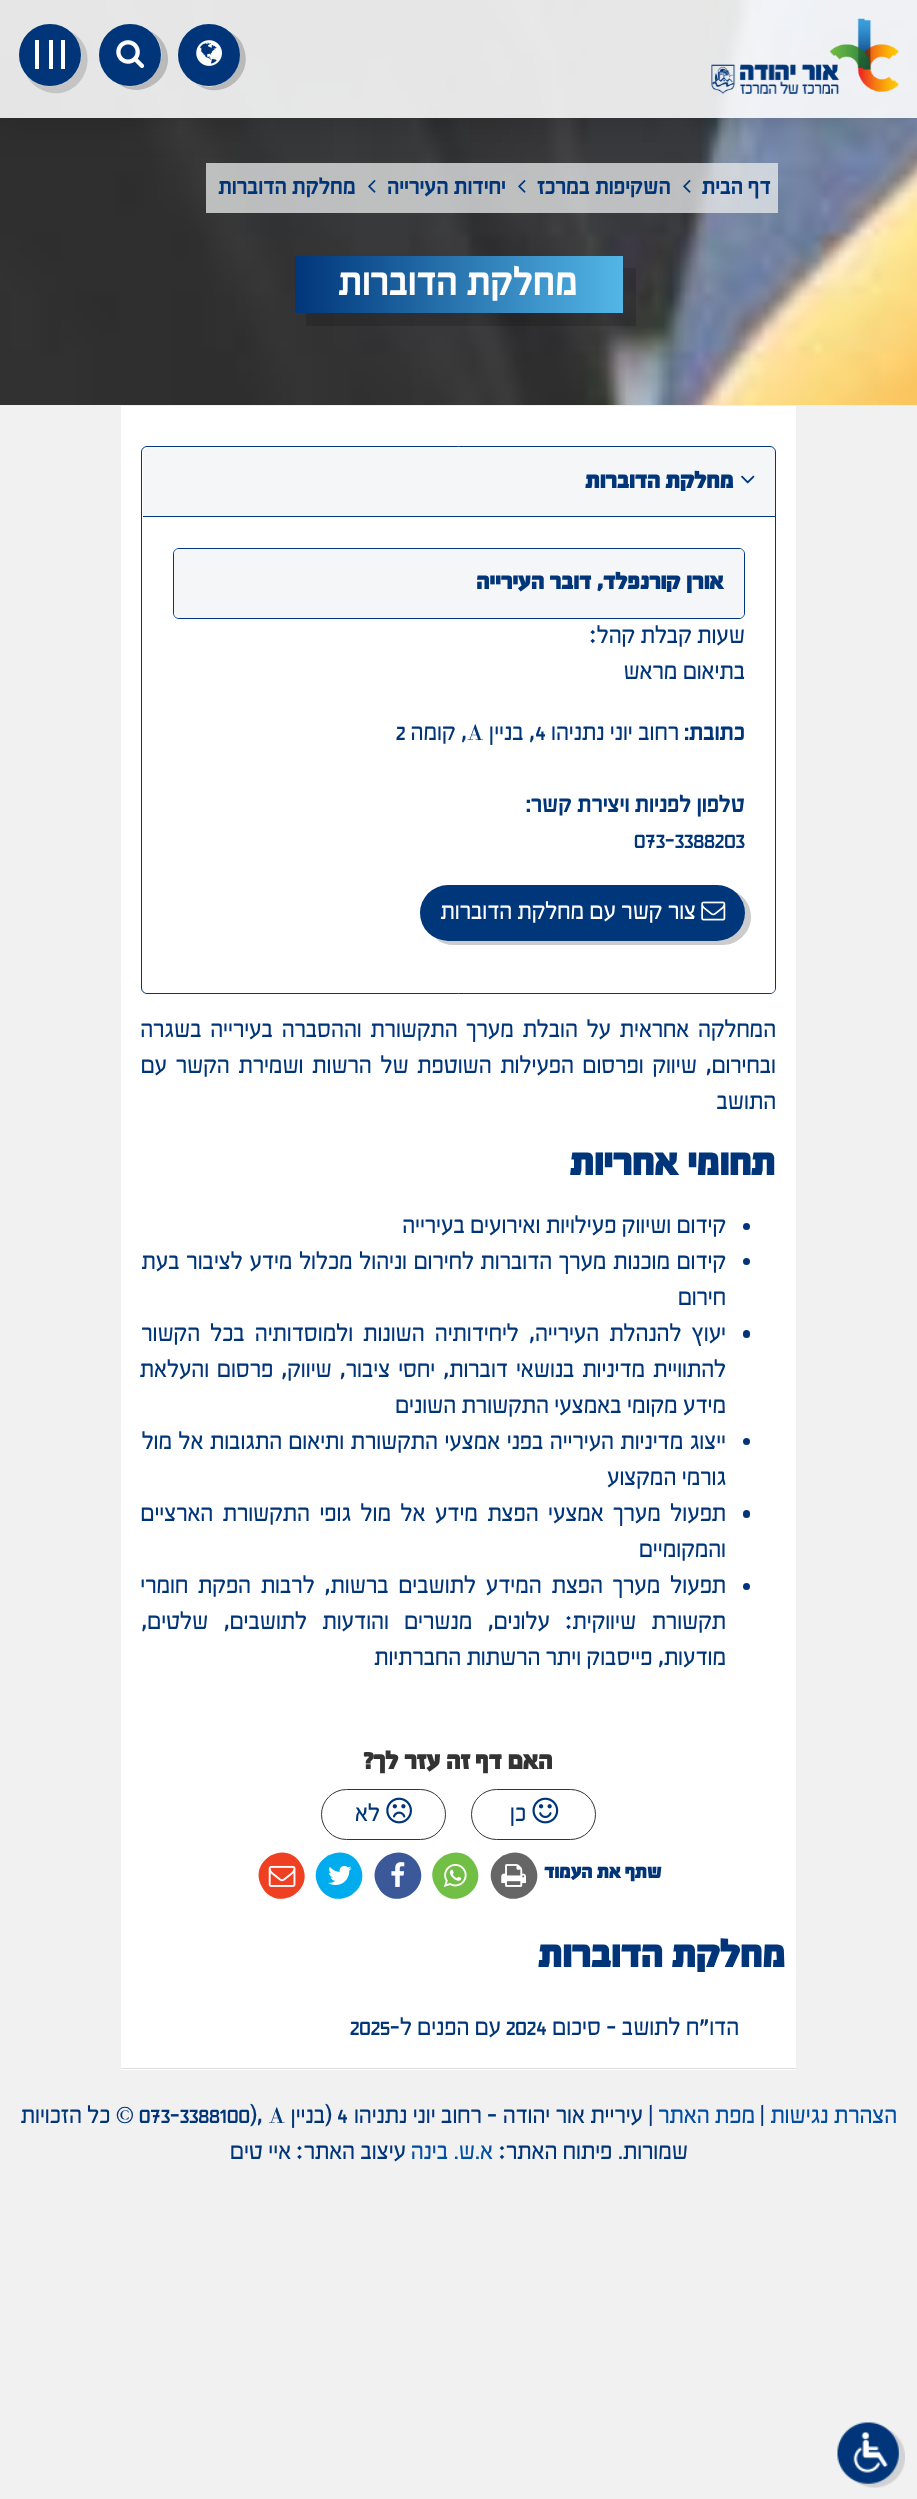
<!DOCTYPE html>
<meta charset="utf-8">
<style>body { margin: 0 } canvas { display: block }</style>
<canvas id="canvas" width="917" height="2499"></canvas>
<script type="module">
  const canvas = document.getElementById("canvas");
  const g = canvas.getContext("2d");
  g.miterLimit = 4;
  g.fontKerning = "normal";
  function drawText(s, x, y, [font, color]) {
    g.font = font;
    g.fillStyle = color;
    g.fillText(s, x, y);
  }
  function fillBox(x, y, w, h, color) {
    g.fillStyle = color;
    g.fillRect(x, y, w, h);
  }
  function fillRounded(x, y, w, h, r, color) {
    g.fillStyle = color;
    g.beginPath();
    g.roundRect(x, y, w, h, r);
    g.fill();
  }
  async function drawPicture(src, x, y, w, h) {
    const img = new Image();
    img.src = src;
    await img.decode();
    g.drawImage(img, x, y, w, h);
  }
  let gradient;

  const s1 = ["bold 23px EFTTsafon", "#003679"];
  const s2 = ["bold 40px EFTTsafon", "#FFFFFF"];
  const s3 = ["900 24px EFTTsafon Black", "#003679"];
  const s4 = ["24px EFTTsafon", "#003679"];
  const s5 = ["bold 24px EFTTsafon", "#003679"];
  const s6 = ["24px EFTTsafon", "#FFFFFF"];
  const s7 = ["900 40px EFTTsafon Black", "#003679"];
  const s8 = ["900 26px EFTTsafon Black", "#333333"];
  const s9 = ["900 20px EFTTsafon Black", "#003679"];
  const s10 = ["24px EFTTsafon", "#004FA5"];

  fillBox(0, 0, 917, 2499, "#F1F1F1");
  await drawPicture("pic4.png", 0, 0, 917, 405);
  fillBox(206, 163, 572, 50, "rgba(235, 236, 236, 0.75)");
  g.save();
  g.beginPath();
  g.moveTo(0, 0);
  g.lineTo(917, 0);
  g.lineTo(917, 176);
  g.lineTo(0, 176);
  g.closePath();
  g.moveTo(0, 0);
  g.lineTo(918, 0);
  g.lineTo(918, 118);
  g.lineTo(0, 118);
  g.closePath();
  g.clip("evenodd");
  g.fillStyle = "rgba(0, 0, 0, 0.2)";
  g.filter = "blur(19px)";
  g.beginPath();
  g.rect(0, 0, 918, 118);
  g.fill();
  g.filter = "none";
  g.restore();
  fillBox(0, 0, 917, 118, "rgba(255, 255, 255, 0.88)");
  await drawPicture("pic1.png", 711, 18, 188, 76);
  g.fillStyle = "#B9B9B9";
  g.beginPath();
  g.moveTo(196, 84);
  g.bezierCurveTo(221, 103, 256, 76, 243, 46);
  g.bezierCurveTo(241, 40, 236, 35, 229, 32);
  g.bezierCurveTo(256, 55, 228, 98, 196, 84);
  g.closePath();
  g.fill();
  g.fillStyle = "#003679";
  g.beginPath();
  g.arc(209, 55, 31, 0, Math.PI * 2);
  g.fill();
  await drawPicture("pic2.png", 196, 40, 26, 26);
  g.fillStyle = "#B9B9B9";
  g.beginPath();
  g.moveTo(117, 83);
  g.bezierCurveTo(142, 103, 179, 76, 165, 46);
  g.bezierCurveTo(162, 39, 156, 34, 150, 31);
  g.bezierCurveTo(178, 54, 150, 99, 117, 83);
  g.closePath();
  g.fill();
  g.fillStyle = "#003679";
  g.beginPath();
  g.arc(130, 55, 31, 0, Math.PI * 2);
  g.fill();
  await drawPicture("pic3.png", 116, 40, 29, 28);
  g.fillStyle = "#C4C4C4";
  g.beginPath();
  g.moveTo(27, 76);
  g.bezierCurveTo(31, 84, 38, 89, 47, 92);
  g.bezierCurveTo(84, 102, 104, 50, 71, 32);
  g.bezierCurveTo(84, 44, 85, 65, 72, 77);
  g.bezierCurveTo(60, 90, 39, 89, 27, 76);
  g.closePath();
  g.fill();
  g.fillStyle = "#003679";
  g.beginPath();
  g.arc(50, 55, 31, 0, Math.PI * 2);
  g.fill();
  fillBox(61, 40, 4, 29, "#FFFFFF");
  fillBox(49, 40, 4, 29, "#FFFFFF");
  fillBox(35, 40, 4, 29, "#FFFFFF");
  g.direction = "rtl";
  drawText("דף הבית", 771, 194, s1);
  await drawPicture("pic5.png", 683, 180, 8, 13);
  drawText("השקיפות במרכז", 671, 194, s1);
  await drawPicture("pic6.png", 518, 180, 8, 13);
  drawText("יחידות העירייה", 506, 194, s1);
  await drawPicture("pic7.png", 368, 180, 8, 13);
  drawText("מחלקת הדוברות", 356, 194, s1);
  g.fillStyle = "rgba(0, 0, 0, 0.15)";
  g.beginPath();
  g.moveTo(306, 312);
  g.lineTo(306, 326);
  g.lineTo(636, 326);
  g.lineTo(636, 268);
  g.lineTo(622, 268);
  g.lineTo(622, 312);
  g.closePath();
  g.fill();
  gradient = g.createLinearGradient(295, 284, 623, 284);
  gradient.addColorStop(0, "#00367A");
  gradient.addColorStop(1, "#53B6E7");
  g.fillStyle = gradient;
  g.fillRect(295, 256, 328, 57);
  drawText("מחלקת הדוברות", 578, 295, s2);
  fillBox(121, 406, 675, 1664, "#FFFFFF");
  g.beginPath();
  g.roundRect(141.5, 446.5, 634, 547, 5.5);
  g.strokeStyle = "#00367A";
  g.stroke();
  g.fillStyle = "#F5F6F8";
  g.beginPath();
  g.roundRect(143, 448, 632, 68, [5, 5, 0, 0]);
  g.fill();
  await drawPicture("pic8.png", 741, 475, 14, 9);
  drawText("מחלקת הדוברות", 734, 488, s3);
  g.fillStyle = "#FFFFFF";
  g.beginPath();
  g.roundRect(143, 516, 632, 477, [0, 0, 5, 5]);
  g.fill();
  fillBox(143, 516, 632, 1, "#00367A");
  g.beginPath();
  g.roundRect(173.5, 548.5, 571, 70, 5.5);
  g.stroke();
  fillRounded(174, 549, 570, 69, 5, "#F5F6F8");
  drawText("אורן", 724, 589, s3);
  drawText("קורנפלד, דובר העירייה", 681, 589, s3);
  drawText("שעות קבלת קהל:", 745, 643, s4);
  drawText("בתיאום מראש", 745, 679, s4);
  drawText("כתובת:", 745, 740, s5);
  drawText("רחוב יוני נתניהו", 679, 740, s4);
  g.direction = "ltr";
  drawText("4", 535, 740, s4);
  g.direction = "rtl";
  drawText(", בניין", 535, 740, s4);
  g.direction = "ltr";
  drawText("A", 467, 740, s4);
  g.direction = "rtl";
  drawText(", קומה", 467, 740, s4);
  g.direction = "ltr";
  drawText("2", 396, 740, s4);
  g.direction = "rtl";
  drawText("טלפון לפניות ויצירת קשר:", 745, 812, s5);
  g.direction = "ltr";
  drawText("073-3388203", 634, 848, s4);
  g.fillStyle = "#CCCCCC";
  g.beginPath();
  g.moveTo(436, 939);
  g.bezierCurveTo(441, 943, 447, 945, 454, 945);
  g.lineTo(723, 945);
  g.bezierCurveTo(738, 945, 751, 932, 751, 917);
  g.bezierCurveTo(751, 906, 745, 896, 735, 892);
  g.bezierCurveTo(741, 897, 745, 905, 745, 913);
  g.bezierCurveTo(745, 929, 732, 941, 717, 941);
  g.lineTo(448, 941);
  g.bezierCurveTo(444, 941, 440, 940, 436, 939);
  g.closePath();
  g.fill();
  fillRounded(420, 885, 325, 56, 28, "#00367A");
  await drawPicture("pic9.png", 701, 901, 25, 20);
  g.direction = "rtl";
  drawText("צור קשר עם מחלקת הדוברות", 696, 919, s6);
  g.wordSpacing = "3.25px";
  drawText("המחלקה אחראית על הובלת מערך התקשורת וההסברה בעירייה בשגרה", 776, 1037, s4);
  drawText("ובחירום, שיווק ופרסום הפעילות השוטפת של הרשות ושמירת הקשר עם", 776, 1073, s4);
  g.wordSpacing = "0px";
  drawText("התושב", 776, 1109, s4);
  drawText("תחומי אחריות", 776, 1175, s7);
  g.beginPath();
  g.arc(746.5, 1226.5, 3.5, 0, Math.PI * 2);
  g.fill();
  drawText("קידום ושיווק פעילויות ואירועים בעירייה", 726, 1233, s4);
  g.beginPath();
  g.arc(746.5, 1261.5, 3.5, 0, Math.PI * 2);
  g.fill();
  g.wordSpacing = "1.25px";
  drawText("קידום מוכנות מערך הדוברות לחירום וניהול מכלול מידע לציבור בעת", 726, 1269, s4);
  g.wordSpacing = "0px";
  drawText("חירום", 726, 1305, s4);
  fillRounded(743, 1330, 7, 8, 3.5, "#003679");
  g.wordSpacing = "4.75px";
  drawText("יעוץ להנהלת העירייה, ליחידותיה השונות ולמוסדותיה בכל הקשור", 726, 1341, s4);
  g.wordSpacing = "2.5px";
  drawText("להתוויית מדיניות בנושאי דוברות, יחסי ציבור, שיווק, פרסום והעלאת", 726, 1377, s4);
  g.wordSpacing = "0px";
  drawText("מידע מקומי באמצעי התקשורת השונים", 726, 1413, s4);
  g.beginPath();
  g.arc(746.5, 1441.5, 3.5, 0, Math.PI * 2);
  g.fill();
  g.wordSpacing = "1px";
  drawText("ייצוג מדיניות העירייה בפני אמצעי התקשורת ותיאום התגובות אל מול", 726, 1449, s4);
  g.wordSpacing = "0px";
  drawText("גורמי המקצוע", 726, 1485, s4);
  fillRounded(743, 1510, 7, 8, 3.5, "#003679");
  g.wordSpacing = "4px";
  drawText("תפעול מערך אמצעי הפצת מידע אל מול גופי התקשורת הארציים", 726, 1521, s4);
  g.wordSpacing = "0px";
  drawText("והמקומיים", 726, 1557, s4);
  g.beginPath();
  g.arc(746.5, 1586.5, 3.5, 0, Math.PI * 2);
  g.fill();
  g.wordSpacing = "4.5px";
  drawText("תפעול מערך הפצת המידע לתושבים ברשות, לרבות הפקת חומרי", 726, 1593, s4);
  g.wordSpacing = "10px";
  drawText("תקשורת שיווקית: עלונים, מנשרים והודעות לתושבים, שלטים,", 726, 1629, s4);
  g.wordSpacing = "0px";
  drawText("מודעות, פייסבוק ויתר הרשתות החברתיות", 726, 1665, s4);
  drawText("האם דף זה עזר לך?", 553, 1769, s8);
  g.beginPath();
  g.roundRect(471.5, 1789.5, 124, 50, 25);
  g.strokeStyle = "#333333";
  g.stroke();
  await drawPicture("pic10.png", 532, 1797, 27, 27);
  drawText("כן", 526, 1821, s4);
  g.beginPath();
  g.roundRect(321.5, 1789.5, 124, 50, 25);
  g.stroke();
  await drawPicture("pic11.png", 386, 1797, 26, 27);
  drawText("לא", 380, 1821, s4);
  drawText("שתף את העמוד", 662, 1878, s9);
  g.fillStyle = "#666666";
  g.beginPath();
  g.moveTo(534, 1864);
  g.bezierCurveTo(549, 1890, 510, 1914, 494, 1887);
  g.bezierCurveTo(479, 1861, 519, 1838, 534, 1864);
  g.closePath();
  g.fill();
  await drawPicture("pic12.png", 501, 1864, 25, 23);
  g.fillStyle = "#71BF44";
  g.beginPath();
  g.moveTo(475, 1864);
  g.bezierCurveTo(490, 1890, 451, 1914, 436, 1887);
  g.bezierCurveTo(420, 1861, 460, 1838, 475, 1864);
  g.closePath();
  g.fill();
  await drawPicture("pic13.png", 443, 1864, 24, 23);
  g.fillStyle = "#3B5998";
  g.beginPath();
  g.moveTo(418, 1864);
  g.bezierCurveTo(433, 1890, 393, 1914, 378, 1887);
  g.bezierCurveTo(363, 1861, 402, 1838, 418, 1864);
  g.closePath();
  g.fill();
  await drawPicture("pic14.png", 391, 1862, 14, 25);
  g.fillStyle = "#00ACED";
  g.beginPath();
  g.moveTo(359, 1864);
  g.bezierCurveTo(374, 1890, 335, 1914, 319, 1887);
  g.bezierCurveTo(304, 1861, 344, 1838, 359, 1864);
  g.closePath();
  g.fill();
  await drawPicture("pic15.png", 328, 1866, 24, 19);
  g.fillStyle = "#EF4023";
  g.beginPath();
  g.moveTo(301, 1864);
  g.bezierCurveTo(317, 1890, 277, 1914, 262, 1887);
  g.bezierCurveTo(247, 1861, 286, 1838, 301, 1864);
  g.closePath();
  g.fill();
  await drawPicture("pic16.png", 268, 1865, 28, 22);
  drawText("מחלקת הדוברות", 786, 1967, s7);
  fillBox(121, 2068, 675, 1, "#DDDDDD");
  drawText("הדו\"ח לתושב - סיכום", 739, 2035, s4);
  g.direction = "ltr";
  drawText("2024", 506, 2035, s4);
  g.direction = "rtl";
  drawText("עם הפנים ל-", 501, 2035, s4);
  g.direction = "ltr";
  drawText("2025", 350, 2035, s4);
  g.direction = "rtl";
  drawText("הצהרת נגישות", 897, 2123, s10);
  g.direction = "ltr";
  drawText("|", 760, 2123, s4);
  g.direction = "rtl";
  drawText("מפת האתר", 755, 2123, s10);
  drawText("| עיריית אור יהודה - רחוב יוני נתניהו", 653, 2123, s4);
  g.direction = "ltr";
  drawText("4", 337, 2123, s4);
  g.direction = "rtl";
  drawText("(בניין", 332, 2123, s4);
  g.direction = "ltr";
  drawText("073-3388100), A", 139, 2123, s4);
  g.direction = "rtl";
  drawText("© כל הזכויות", 134, 2123, s4);
  drawText("שמורות. פיתוח האתר:", 688, 2159, s4);
  drawText("א.ש. בינה", 493, 2159, s10);
  drawText("עיצוב האתר: איי טים", 406, 2159, s4);
  await drawPicture("pic17.png", 837, 2422, 68, 66);
</script>
